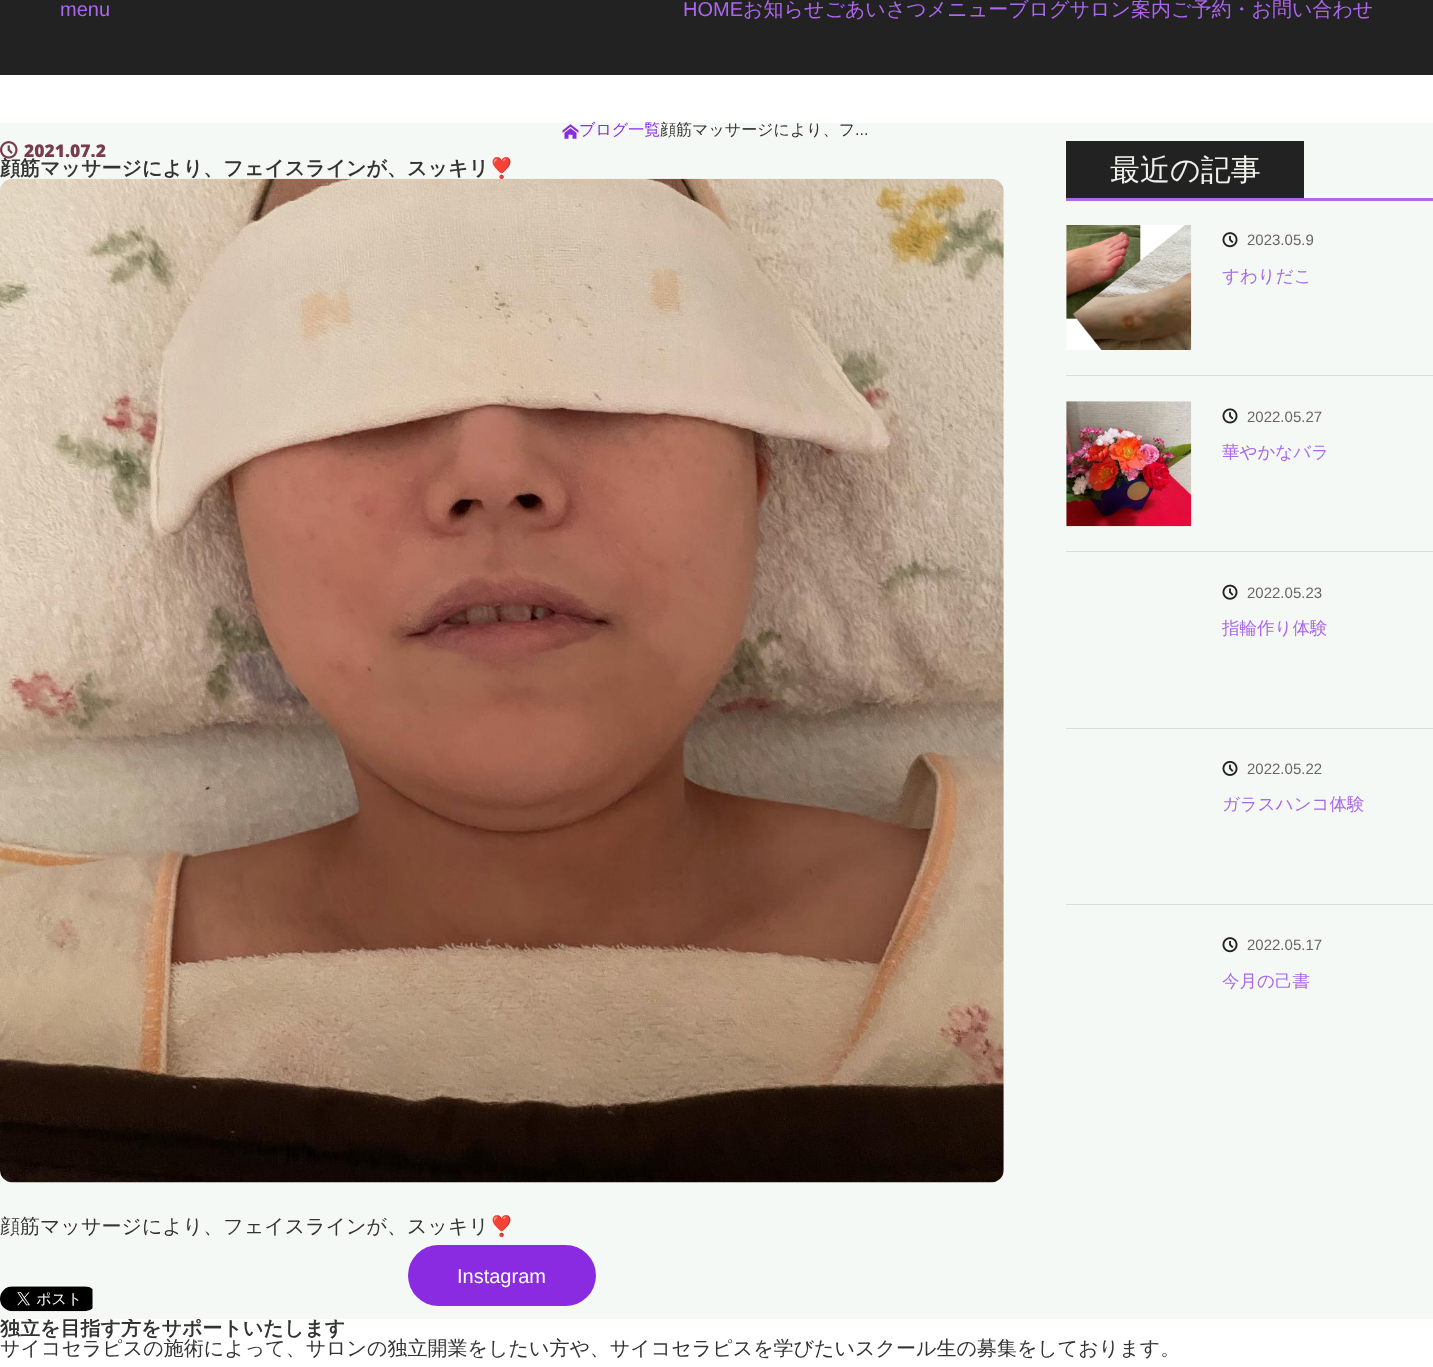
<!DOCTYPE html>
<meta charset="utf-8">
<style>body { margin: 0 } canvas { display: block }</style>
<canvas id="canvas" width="1433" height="1367"></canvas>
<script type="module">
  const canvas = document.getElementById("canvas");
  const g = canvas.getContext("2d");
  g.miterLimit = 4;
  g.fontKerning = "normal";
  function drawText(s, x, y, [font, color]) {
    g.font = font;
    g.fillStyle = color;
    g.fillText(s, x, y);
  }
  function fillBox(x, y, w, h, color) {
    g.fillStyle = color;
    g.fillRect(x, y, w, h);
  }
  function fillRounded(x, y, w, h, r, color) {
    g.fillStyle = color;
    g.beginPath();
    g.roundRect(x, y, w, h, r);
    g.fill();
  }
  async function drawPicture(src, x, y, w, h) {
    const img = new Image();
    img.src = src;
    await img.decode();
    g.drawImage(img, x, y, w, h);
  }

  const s1 = ["20px Liberation Sans", "#AC67EB"];
  const s2 = ["500 20px WenQuanYi Zen Hei", "#AC67EB"];
  const s3 = ["bold 20px WenQuanYi Zen Hei", "#333333"];
  const s4 = ["500 16px WenQuanYi Zen Hei", "#8A2BE2"];
  const s5 = ["500 16px WenQuanYi Zen Hei", "#333333"];
  const s6 = ["16px Liberation Sans", "#333333"];
  const s7 = ["900 17.5px Noto Sans", "#783C4D"];
  const s8 = ["bold 20px Noto Color Emoji", "#333333"];
  const s9 = ["500 20px WenQuanYi Zen Hei", "#333333"];
  const s10 = ["20px Noto Color Emoji", "#333333"];
  const s11 = ["20px Liberation Sans", "#FFFFFF"];
  const s12 = ["100 30px Noto Sans", "#F1F1EC"];
  const s13 = ["15px Liberation Sans", "#666666"];
  const s14 = ["500 17.5px WenQuanYi Zen Hei", "#AC67EB"];

  fillBox(0, 0, 1433, 1367, "#FFFFFF");
  fillBox(0, 0, 1433, 75, "#222222");
  drawText("menu", 60, 16, s1);
  drawText("HOME", 683, 16, s1);
  drawText("お知らせごあいさつメニューブログサロン案内ご予約・お問い合わせ", 743, 16, s2);
  drawText("独立を目指す方をサポートいたします", 0, 1335, s3);
  fillBox(0, 123, 1433, 1196, "#F4F9F5");
  await drawPicture("pic1.png", 562, 124, 17, 15);
  drawText("ブログ一覧", 579, 135, s4);
  drawText("顔筋マッサージにより、フ", 660, 135, s5);
  drawText("...", 855, 135, s6);
  drawText("顔筋マッサージにより、フェイスラインが、スッキリ", 0, 175, s3);
  await drawPicture("pic2.png", 0, 141, 18, 18);
  drawText("2021.07.2", 24, 157, s7);
  drawText("❣️", 489, 175, s8);
  await drawPicture("pic3.png", 0, 178, 1004, 1005);
  drawText("顔筋マッサージにより、フェイスラインが、スッキリ", 0, 1233, s9);
  drawText("❣️", 489, 1233, s10);
  fillRounded(408, 1245, 188, 61, 30.5, "#8A2BE2");
  drawText("Instagram", 457, 1283, s11);
  await drawPicture("pic4.png", 0, 1286, 93, 26);
  fillBox(1066, 198, 367, 3, "#AC67EB");
  fillBox(1066, 141, 238, 57, "#222222");
  drawText("最近の記事", 1110, 180, s12);
  fillBox(1066, 375, 367, 1, "#DDDDDD");
  await drawPicture("pic5.png", 1066, 225, 126, 125);
  await drawPicture("pic6.png", 1222, 232, 16, 16);
  drawText("2023.05.9", 1247, 245, s13);
  drawText("すわりだこ", 1222, 282, s14);
  fillBox(1066, 551, 367, 1, "#DDDDDD");
  await drawPicture("pic7.png", 1066, 401, 126, 126);
  await drawPicture("pic8.png", 1222, 408, 16, 16);
  drawText("2022.05.27", 1247, 422, s13);
  drawText("華やかなバラ", 1222, 458, s14);
  fillBox(1066, 728, 367, 1, "#DDDDDD");
  await drawPicture("pic9.png", 1222, 584, 16, 16);
  drawText("2022.05.23", 1247, 598, s13);
  drawText("指輪作り体験", 1222, 634, s14);
  fillBox(1066, 904, 367, 1, "#DDDDDD");
  await drawPicture("pic10.png", 1222, 761, 16, 15);
  drawText("2022.05.22", 1247, 774, s13);
  drawText("ガラスハンコ体験", 1222, 810, s14);
  await drawPicture("pic6.png", 1222, 937, 16, 16);
  drawText("2022.05.17", 1247, 950, s13);
  drawText("今月の己書", 1222, 987, s14);
  drawText("サイコセラピスの施術によって、サロンの独立開業をしたい方や、サイコセラピスを学びたいスクール生の募集をしております。", 0, 1355, s9);
</script>
